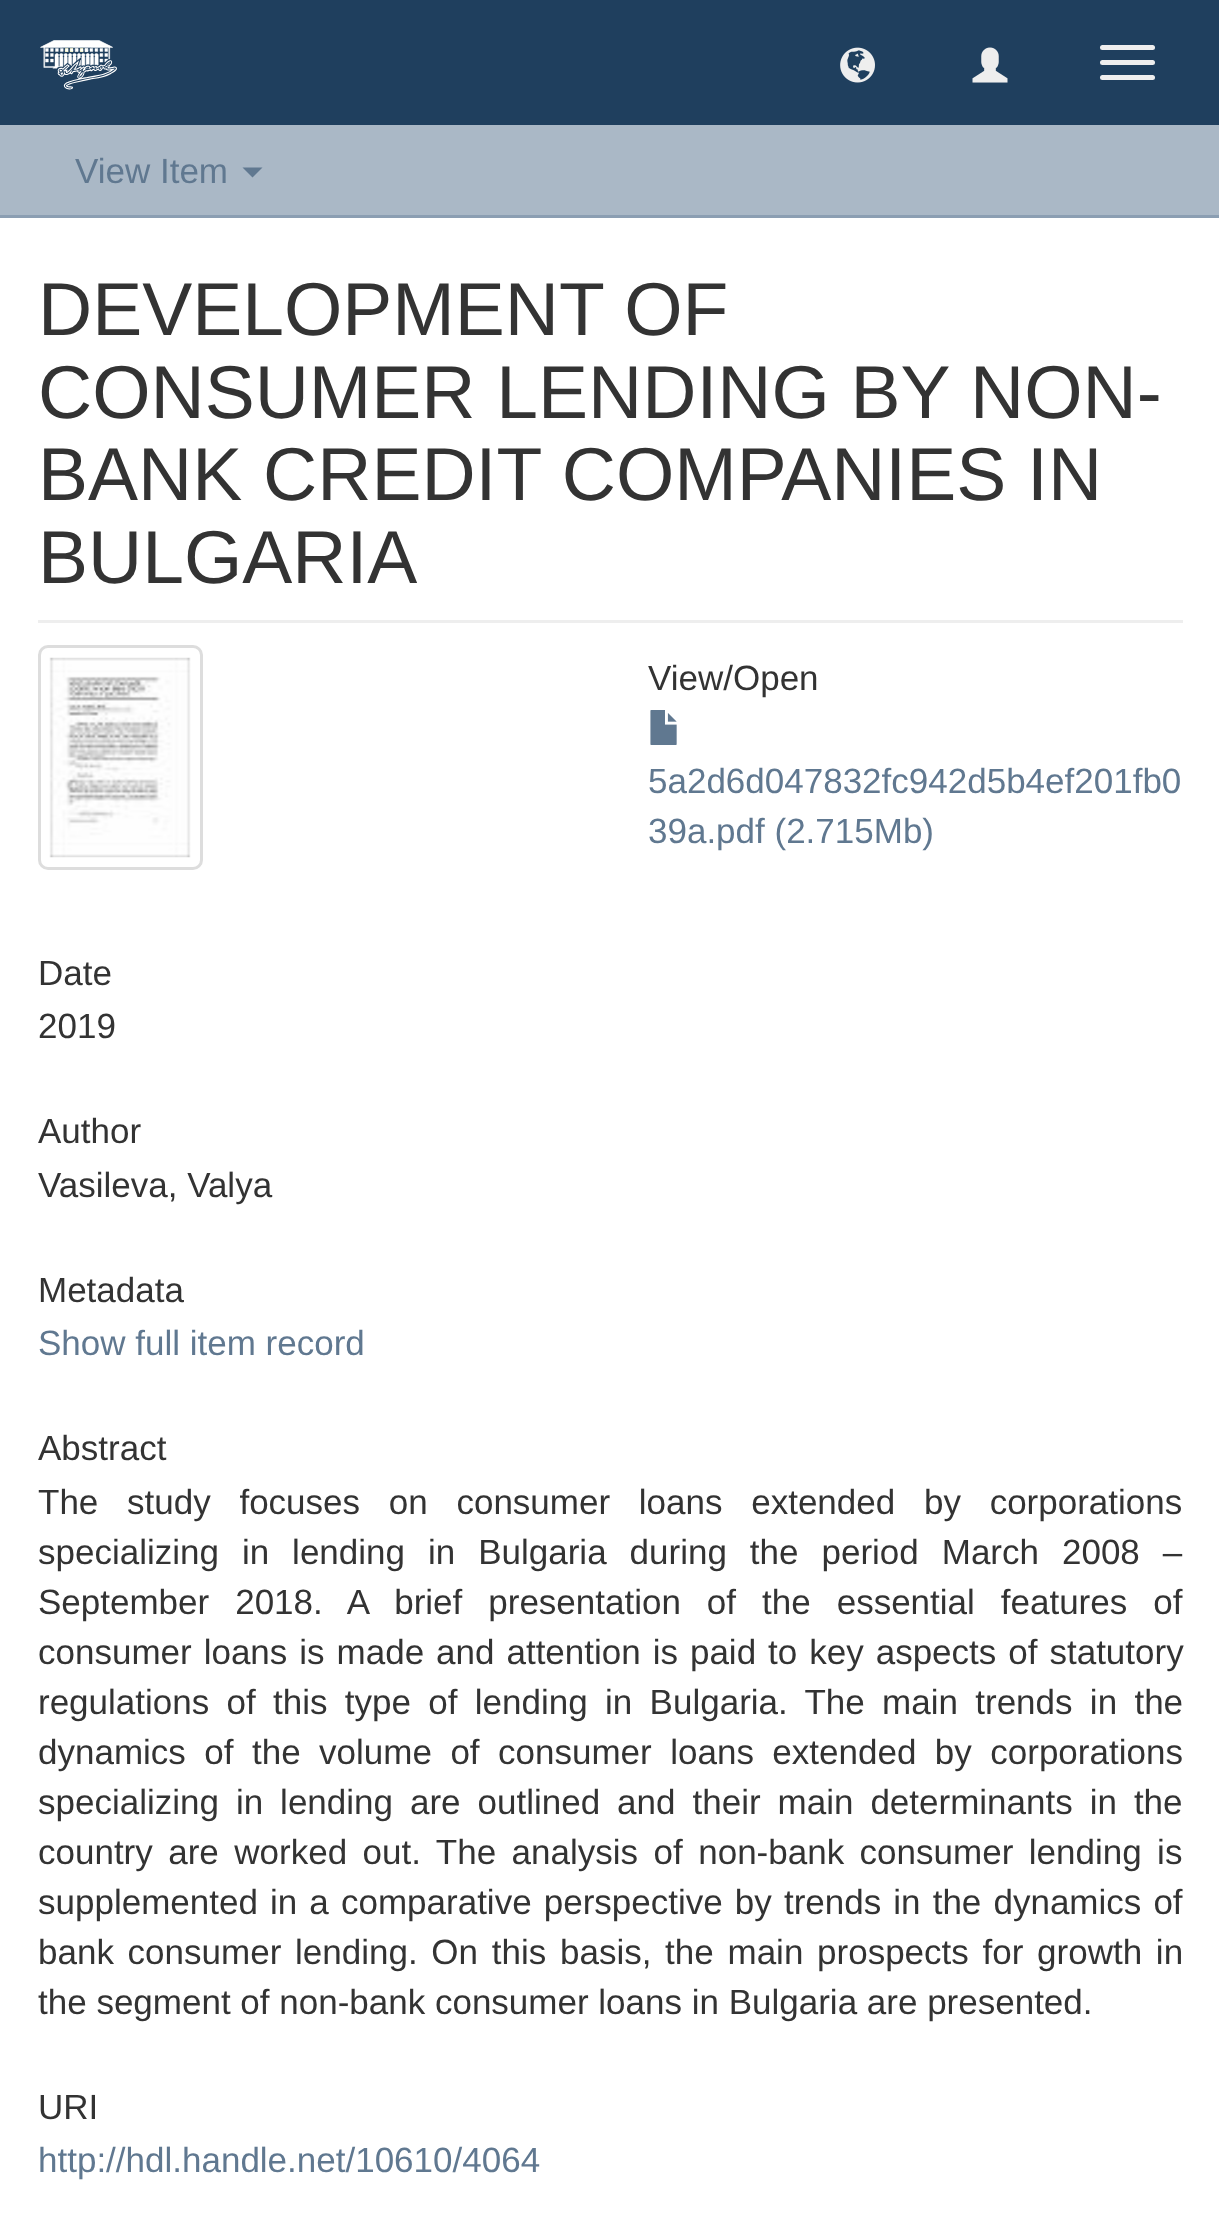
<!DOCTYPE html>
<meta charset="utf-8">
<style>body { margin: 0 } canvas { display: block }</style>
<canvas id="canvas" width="1219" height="2230"></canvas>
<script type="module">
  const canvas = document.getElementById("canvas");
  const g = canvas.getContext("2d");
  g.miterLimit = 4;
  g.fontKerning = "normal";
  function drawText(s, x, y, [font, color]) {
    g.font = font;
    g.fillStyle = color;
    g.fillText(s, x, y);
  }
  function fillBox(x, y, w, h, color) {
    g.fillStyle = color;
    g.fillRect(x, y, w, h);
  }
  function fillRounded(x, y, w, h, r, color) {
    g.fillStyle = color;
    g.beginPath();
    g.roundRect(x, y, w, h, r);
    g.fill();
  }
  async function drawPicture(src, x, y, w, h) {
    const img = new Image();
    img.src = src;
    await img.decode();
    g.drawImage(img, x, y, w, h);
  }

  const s1 = ["35px Liberation Sans", "#607890"];
  const s2 = ["75px Liberation Sans", "#333333"];
  const s3 = ["35px Liberation Sans", "#333333"];

  fillBox(0, 0, 1219, 2230, "#AAB8C6");
  fillBox(0, 0, 1219, 125, "#1F3F5E");
  await drawPicture("pic1.png", 40, 40, 77, 50);
  await drawPicture("pic2.png", 840, 47, 35, 36);
  await drawPicture("pic3.png", 972, 47, 36, 36);
  fillRounded(1100, 45, 55, 5, 2.5, "#EEEEEE");
  fillRounded(1100, 60, 55, 5, 2.5, "#EEEEEE");
  fillRounded(1100, 75, 55, 5, 2.5, "#EEEEEE");
  fillBox(0, 215, 1219, 3, "#8B9EB2");
  drawText("View Item", 75, 183, s1);
  g.beginPath();
  g.moveTo(242.5, 167.5);
  g.lineTo(262.5, 167.5);
  g.lineTo(252.5, 177.5);
  g.closePath();
  g.fill();
  fillBox(0, 218, 1219, 2012, "#FFFFFF");
  fillBox(38, 620, 1145, 3, "#EEEEEE");
  drawText("DEVELOPMENT OF", 38, 335, s2);
  drawText("CONSUMER LENDING BY NON-", 38, 418, s2);
  drawText("BANK CREDIT COMPANIES IN", 38, 500, s2);
  drawText("BULGARIA", 38, 583, s2);
  g.beginPath();
  g.roundRect(39.5, 646.5, 162, 222, 8.5);
  g.strokeStyle = "#DDDDDD";
  g.lineWidth = 3;
  g.stroke();
  await drawPicture("pic4.png", 49, 657, 142, 201);
  drawText("View/Open", 648, 690, s3);
  await drawPicture("pic5.png", 650, 710, 27, 35);
  drawText("5a2d6d047832fc942d5b4ef201fb0", 648, 793, s1);
  drawText("39a.pdf (2.715Mb)", 648, 843, s1);
  drawText("Date", 38, 985, s3);
  drawText("2019", 38, 1038, s3);
  drawText("Author", 38, 1143, s3);
  drawText("Vasileva, Valya", 38, 1197, s3);
  drawText("Metadata", 38, 1302, s3);
  drawText("Show full item record", 38, 1355, s1);
  drawText("Abstract", 38, 1460, s3);
  g.wordSpacing = "19px";
  drawText("The study focuses on consumer loans extended by corporations", 38, 1514, s3);
  g.wordSpacing = "13.25px";
  drawText("specializing in lending in Bulgaria during the period March 2008 –", 38, 1564, s3);
  g.wordSpacing = "16.25px";
  drawText("September 2018. A brief presentation of the essential features of", 38, 1614, s3);
  g.wordSpacing = "2.25px";
  drawText("consumer loans is made and attention is paid to key aspects of statutory", 38, 1664, s3);
  g.wordSpacing = "7.6px";
  drawText("regulations of this type of lending in Bulgaria. The main trends in the", 38, 1714, s3);
  g.wordSpacing = "8.75px";
  drawText("dynamics of the volume of consumer loans extended by corporations", 38, 1764, s3);
  g.wordSpacing = "7.25px";
  drawText("specializing in lending are outlined and their main determinants in the", 38, 1814, s3);
  g.wordSpacing = "5.75px";
  drawText("country are worked out. The analysis of non-bank consumer lending is", 38, 1864, s3);
  g.wordSpacing = "2.4px";
  drawText("supplemented in a comparative perspective by trends in the dynamics of", 38, 1914, s3);
  g.wordSpacing = "4px";
  drawText("bank consumer lending. On this basis, the main prospects for growth in", 38, 1964, s3);
  g.wordSpacing = "0px";
  drawText("the segment of non-bank consumer loans in Bulgaria are presented.", 38, 2014, s3);
  drawText("URI", 38, 2119, s3);
  drawText("http://hdl.handle.net/10610/4064", 38, 2172, s1);
</script>
